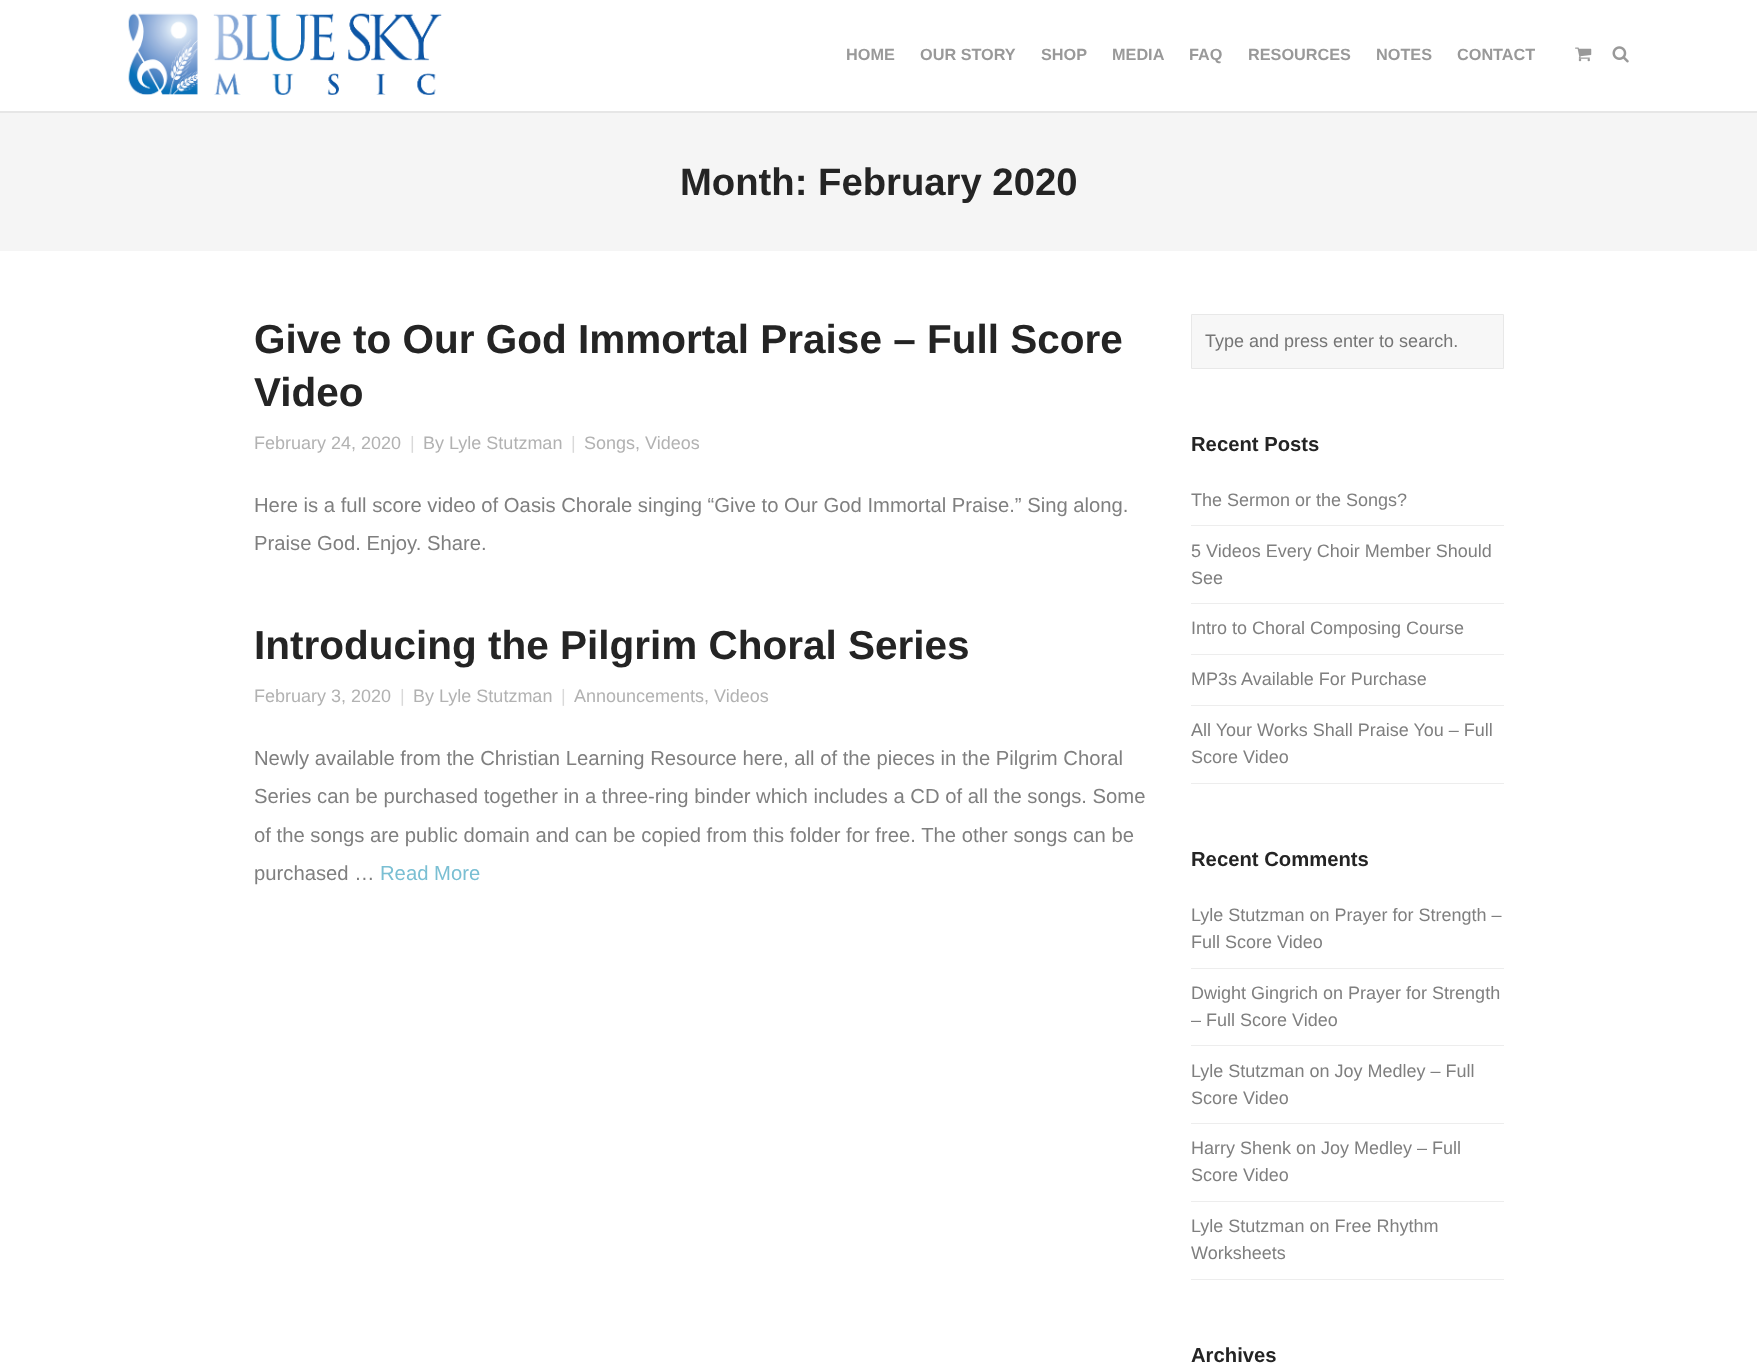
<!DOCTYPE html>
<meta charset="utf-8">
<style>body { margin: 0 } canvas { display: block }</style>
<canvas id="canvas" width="1757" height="1365"></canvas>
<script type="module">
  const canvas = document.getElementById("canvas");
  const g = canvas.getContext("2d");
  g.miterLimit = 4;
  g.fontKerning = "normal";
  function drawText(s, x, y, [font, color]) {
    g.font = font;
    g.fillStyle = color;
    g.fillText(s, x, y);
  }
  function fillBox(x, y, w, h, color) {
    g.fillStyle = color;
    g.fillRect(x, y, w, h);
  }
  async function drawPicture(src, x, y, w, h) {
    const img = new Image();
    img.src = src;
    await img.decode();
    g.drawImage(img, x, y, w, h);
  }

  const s1 = ["bold 16.25px Liberation Sans", "#999999"];
  const s2 = ["bold 38.25px Liberation Sans", "#242424"];
  const s3 = ["bold 40.5px Liberation Sans", "#242424"];
  const s4 = ["18px Liberation Sans", "#B2B2B2"];
  const s5 = ["18px Liberation Sans", "#D9D9D9"];
  const s6 = ["20.25px Liberation Sans", "#7F7F7F"];
  const s7 = ["20.25px Liberation Sans", "#7ABFD3"];
  const s8 = ["18px Liberation Sans", "#757575"];
  const s9 = ["bold 20.25px Liberation Sans", "#242424"];
  const s10 = ["18px Liberation Sans", "#7F7F7F"];

  fillBox(0, 0, 1757, 1365, "#FFFFFF");
  g.fillStyle = "#E6E6E6";
  g.beginPath();
  g.moveTo(0, 111);
  g.lineTo(0, 113);
  g.lineTo(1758, 113);
  g.lineTo(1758, 0);
  g.lineTo(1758, 111);
  g.closePath();
  g.fill();
  await drawPicture("pic1.png", 128, 13, 314, 82);
  drawText("HOME", 846, 60, s1);
  drawText("OUR STORY", 920, 60, s1);
  drawText("SHOP", 1041, 60, s1);
  drawText("MEDIA", 1112, 60, s1);
  drawText("FAQ", 1189, 60, s1);
  drawText("RESOURCES", 1248, 60, s1);
  drawText("NOTES", 1376, 60, s1);
  drawText("CONTACT", 1457, 60, s1);
  await drawPicture("pic2.png", 1575, 47, 17, 15);
  await drawPicture("pic3.png", 1612, 46, 17, 17);
  fillBox(0, 113, 1757, 138, "#F5F5F5");
  drawText("Month: February 2020", 680, 195, s2);
  drawText("Give to Our God Immortal Praise – Full Score", 254, 353, s3);
  drawText("Video", 254, 406, s3);
  drawText("February 24, 2020", 254, 449, s4);
  drawText("|", 410, 449, s5);
  drawText("By Lyle Stutzman", 423, 449, s4);
  drawText("|", 571, 449, s5);
  drawText("Songs, Videos", 584, 449, s4);
  drawText("Here is a full score video of Oasis Chorale singing “Give to Our God Immortal Praise.” Sing along.", 254, 512, s6);
  drawText("Praise God. Enjoy. Share.", 254, 550, s6);
  drawText("Introducing the Pilgrim Choral Series", 254, 659, s3);
  drawText("February 3, 2020", 254, 702, s4);
  drawText("|", 400, 702, s5);
  drawText("By Lyle Stutzman", 413, 702, s4);
  drawText("|", 561, 702, s5);
  drawText("Announcements, Videos", 574, 702, s4);
  drawText("Newly available from the Christian Learning Resource here, all of the pieces in the Pilgrim Choral", 254, 765, s6);
  drawText("Series can be purchased together in a three-ring binder which includes a CD of all the songs. Some", 254, 803, s6);
  drawText("of the songs are public domain and can be copied from this folder for free. The other songs can be", 254, 842, s6);
  drawText("purchased …", 254, 880, s6);
  drawText("Read More", 380, 880, s7);
  g.fillStyle = "#F7F7F7";
  g.beginPath();
  g.rect(1191.5, 314.5, 312, 54);
  g.fill();
  g.strokeStyle = "#E8E8E8";
  g.stroke();
  drawText("Type and press enter to search.", 1205, 347, s8);
  drawText("Recent Posts", 1191, 451, s9);
  fillBox(1191, 525, 313, 1, "#EDEDED");
  drawText("The Sermon or the Songs?", 1191, 506, s10);
  fillBox(1191, 603, 313, 1, "#EDEDED");
  drawText("5 Videos Every Choir Member Should", 1191, 557, s10);
  drawText("See", 1191, 584, s10);
  fillBox(1191, 654, 313, 1, "#EDEDED");
  drawText("Intro to Choral Composing Course", 1191, 634, s10);
  fillBox(1191, 705, 313, 1, "#EDEDED");
  drawText("MP3s Available For Purchase", 1191, 685, s10);
  fillBox(1191, 783, 313, 1, "#EDEDED");
  drawText("All Your Works Shall Praise You – Full", 1191, 736, s10);
  drawText("Score Video", 1191, 763, s10);
  drawText("Recent Comments", 1191, 866, s9);
  fillBox(1191, 968, 313, 1, "#EDEDED");
  drawText("Lyle Stutzman on Prayer for Strength –", 1191, 921, s10);
  drawText("Full Score Video", 1191, 948, s10);
  fillBox(1191, 1045, 313, 1, "#EDEDED");
  drawText("Dwight Gingrich on Prayer for Strength", 1191, 999, s10);
  drawText("– Full Score Video", 1191, 1026, s10);
  fillBox(1191, 1123, 313, 1, "#EDEDED");
  drawText("Lyle Stutzman on Joy Medley – Full", 1191, 1077, s10);
  drawText("Score Video", 1191, 1104, s10);
  fillBox(1191, 1201, 313, 1, "#EDEDED");
  drawText("Harry Shenk on Joy Medley – Full", 1191, 1154, s10);
  drawText("Score Video", 1191, 1181, s10);
  fillBox(1191, 1279, 313, 1, "#EDEDED");
  drawText("Lyle Stutzman on Free Rhythm", 1191, 1232, s10);
  drawText("Worksheets", 1191, 1259, s10);
  drawText("Archives", 1191, 1362, s9);
</script>
